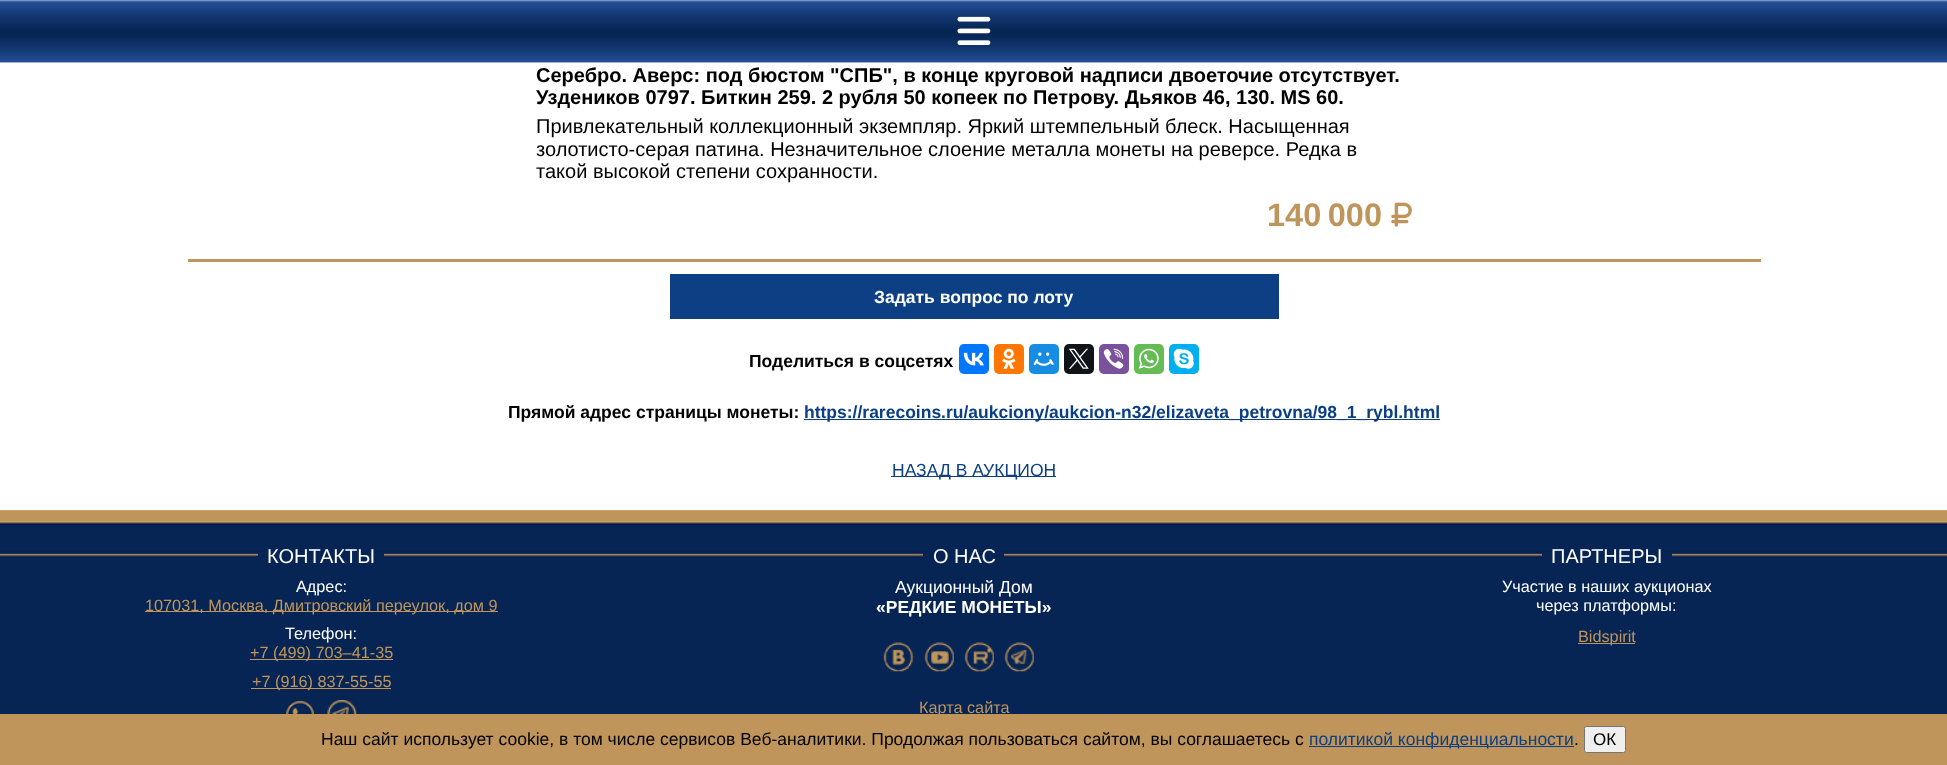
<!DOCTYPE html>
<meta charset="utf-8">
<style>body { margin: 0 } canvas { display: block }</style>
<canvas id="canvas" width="1947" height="765"></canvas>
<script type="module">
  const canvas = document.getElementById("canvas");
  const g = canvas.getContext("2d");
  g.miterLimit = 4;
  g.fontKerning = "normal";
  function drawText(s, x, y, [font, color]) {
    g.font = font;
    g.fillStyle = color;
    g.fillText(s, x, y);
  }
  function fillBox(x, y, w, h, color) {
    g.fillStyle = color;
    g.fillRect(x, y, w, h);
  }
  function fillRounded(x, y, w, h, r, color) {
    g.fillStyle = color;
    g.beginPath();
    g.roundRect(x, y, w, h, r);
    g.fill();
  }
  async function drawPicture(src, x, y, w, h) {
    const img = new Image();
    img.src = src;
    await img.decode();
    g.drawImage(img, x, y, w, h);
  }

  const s1 = ["bold 20px Liberation Sans", "#000000"];
  const s2 = ["20px Liberation Sans", "#000000"];
  const s3 = ["bold 32.5px Liberation Sans", "#BF955B"];
  const s4 = ["bold 17.5px Liberation Sans", "#FFFFFF"];
  const s5 = ["bold 17.5px Liberation Sans", "#000000"];
  const s6 = ["bold 17.5px Liberation Sans", "#0C3F83"];
  const s7 = ["17.5px Liberation Sans", "#0C3F83"];
  const s8 = ["20px Liberation Sans", "#FFFFFF"];
  const s9 = ["16.25px Liberation Sans", "#FFFFFF"];
  const s10 = ["16.25px Liberation Sans", "#BF955B"];
  const s11 = ["17.5px Liberation Sans", "#FFFFFF"];
  const s12 = ["17.5px Liberation Sans", "#000000"];
  const s13 = ["17px Liberation Sans", "#000000"];

  fillBox(0, 0, 1947, 765, "#FFFFFF");
  await drawPicture("pic1.png", 0, 0, 1947, 63);
  await drawPicture("pic2.png", 957, 16, 34, 29);
  drawText("Серебро. Аверс: под бюстом \"СПБ\", в конце круговой надписи двоеточие отсутствует.", 536, 82, s1);
  drawText("Уздеников 0797. Биткин 259. 2 рубля 50 копеек по Петрову. Дьяков 46, 130. MS 60.", 536, 104, s1);
  drawText("Привлекательный коллекционный экземпляр. Яркий штемпельный блеск. Насыщенная", 536, 133, s2);
  drawText("золотисто-серая патина. Незначительное слоение металла монеты на реверсе. Редка в", 536, 156, s2);
  drawText("такой высокой степени сохранности.", 536, 178, s2);
  drawText("140 000", 1267, 226, s3);
  await drawPicture("pic3.png", 1391, 202, 21, 25);
  fillBox(188, 259, 1573, 3, "#BF955B");
  fillBox(670, 274, 609, 45, "#0C3F83");
  drawText("Задать вопрос по лоту", 874, 303, s4);
  drawText("Поделиться в соцсетях", 749, 367, s5);
  fillRounded(959, 344, 30, 30, 5, "#0077FF");
  await drawPicture("pic4.png", 963, 352, 21, 14);
  fillRounded(994, 344, 30, 30, 5, "#FF7700");
  await drawPicture("pic5.png", 1002, 348, 14, 21);
  fillRounded(1029, 344, 30, 30, 5, "#168DE2");
  await drawPicture("pic6.png", 1033, 352, 21, 14);
  fillRounded(1064, 344, 30, 30, 5, "#0F1419");
  await drawPicture("pic7.png", 1068, 348, 21, 21);
  fillRounded(1099, 344, 30, 30, 5, "#7B519D");
  await drawPicture("pic8.png", 1103, 348, 21, 21);
  fillRounded(1134, 344, 30, 30, 5, "#65BC54");
  await drawPicture("pic9.png", 1138, 348, 21, 21);
  fillRounded(1169, 344, 30, 30, 5, "#00AFF0");
  await drawPicture("pic10.png", 1173, 348, 21, 21);
  drawText("Прямой адрес страницы монеты:", 508, 418, s5);
  fillBox(804, 419, 636, 1, "#0C3F83");
  drawText("https://rarecoins.ru/aukciony/aukcion-n32/elizaveta_petrovna/98_1_rybl.html", 804, 418, s6);
  fillBox(891, 476, 165, 1, "#0C3F83");
  drawText("НАЗАД В АУКЦИОН", 892, 476, s7);
  fillBox(0, 558, 1947, 156, "#072554");
  await drawPicture("pic11.png", 0, 510, 1947, 48);
  fillBox(258, 552, 126, 6, "#072554");
  drawText("КОНТАКТЫ", 267, 563, s8);
  drawText("Адрес:", 296, 592, s9);
  fillBox(145, 611, 353, 1, "#BF955B");
  drawText("107031, Москва, Дмитровский переулок, дом 9", 145, 611, s10);
  drawText("Телефон:", 285, 639, s9);
  fillBox(250, 659, 143, 1, "#BF955B");
  drawText("+7 (499) 703–41-35", 250, 658, s10);
  fillBox(251, 688, 140, 1, "#BF955B");
  drawText("+7 (916) 837-55-55", 252, 687, s10);
  await drawPicture("pic12.png", 286, 701, 28, 13);
  await drawPicture("pic13.png", 327, 700, 30, 14);
  fillBox(923, 552, 81, 6, "#072554");
  drawText("О НАС", 933, 563, s8);
  drawText("Аукционный Дом", 895, 593, s11);
  drawText("«РЕДКИЕ МОНЕТЫ»", 876, 613, s4);
  await drawPicture("pic14.png", 883, 642, 31, 30);
  await drawPicture("pic15.png", 924, 642, 30, 30);
  await drawPicture("pic16.png", 964, 642, 30, 30);
  await drawPicture("pic17.png", 1004, 642, 30, 30);
  drawText("Карта сайта", 919, 713, s10);
  fillBox(1542, 552, 130, 6, "#072554");
  drawText("ПАРТНЕРЫ", 1551, 563, s8);
  drawText("Участие в наших аукционах", 1502, 592, s9);
  drawText("через платформы:", 1536, 611, s9);
  fillBox(1578, 643, 57, 1, "#BF955B");
  drawText("Bidspirit", 1578, 642, s10);
  fillBox(0, 714, 1947, 51, "#BF955B");
  drawText("Наш сайт использует сооkiе, в том числе сервисов Веб-аналитики. Продолжая пользоваться сайтом, вы соглашаетесь с", 321, 745, s12);
  fillBox(1309, 746, 265, 1, "#0C3F83");
  drawText("политикой конфиденциальности", 1309, 745, s7);
  drawText(".", 1574, 745, s12);
  g.fillStyle = "#EFEFEF";
  g.beginPath();
  g.roundRect(1584.5, 726.5, 41, 26, 2);
  g.fill();
  g.strokeStyle = "#767676";
  g.stroke();
  drawText("ОК", 1593, 745, s13);
</script>
